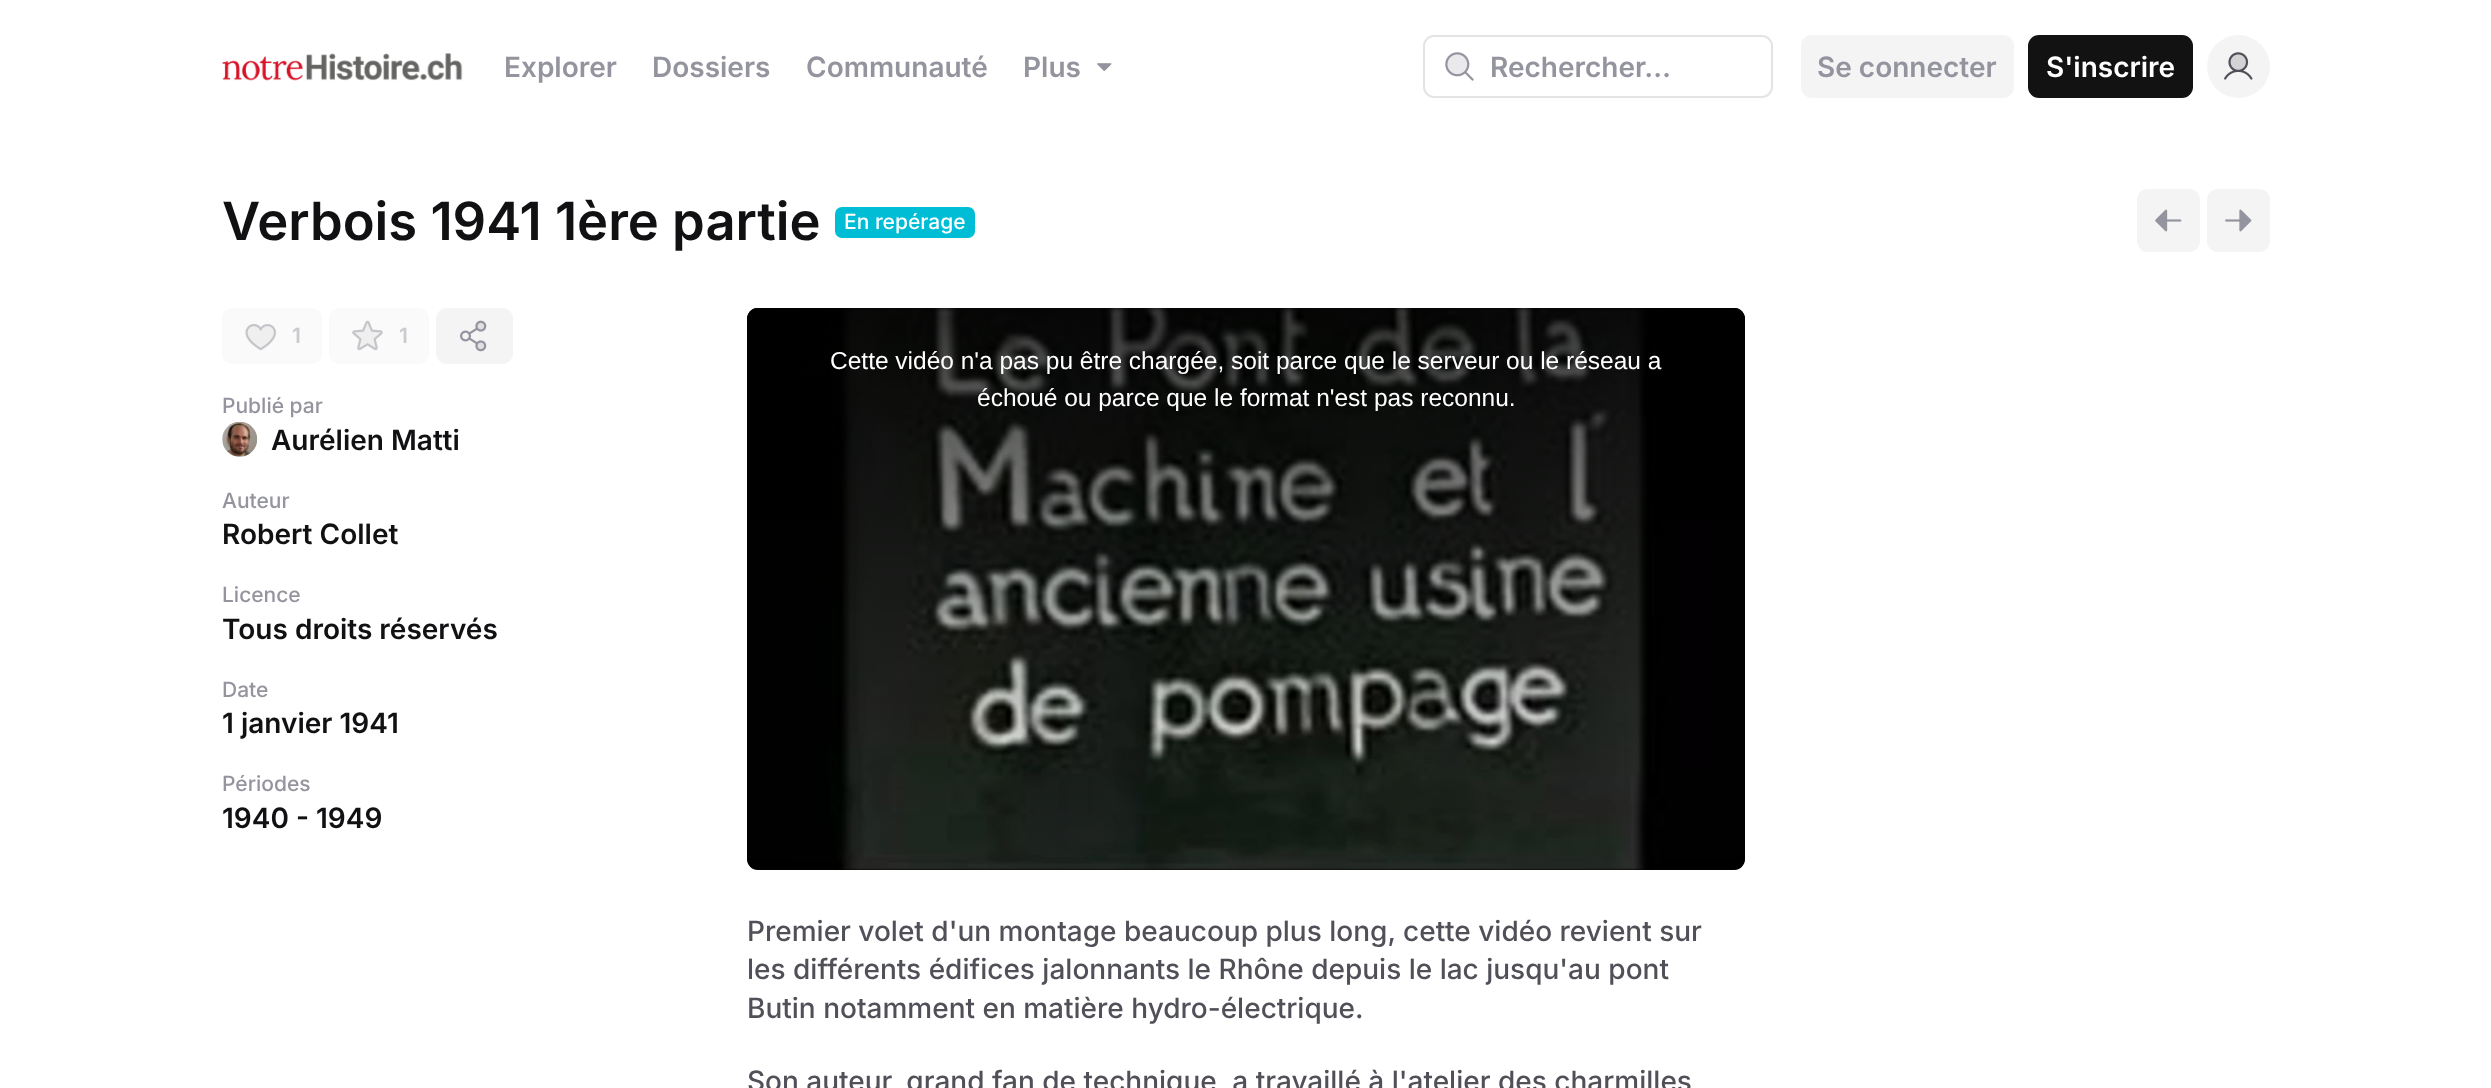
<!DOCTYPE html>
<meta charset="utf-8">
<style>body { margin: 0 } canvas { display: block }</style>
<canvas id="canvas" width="2491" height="1088"></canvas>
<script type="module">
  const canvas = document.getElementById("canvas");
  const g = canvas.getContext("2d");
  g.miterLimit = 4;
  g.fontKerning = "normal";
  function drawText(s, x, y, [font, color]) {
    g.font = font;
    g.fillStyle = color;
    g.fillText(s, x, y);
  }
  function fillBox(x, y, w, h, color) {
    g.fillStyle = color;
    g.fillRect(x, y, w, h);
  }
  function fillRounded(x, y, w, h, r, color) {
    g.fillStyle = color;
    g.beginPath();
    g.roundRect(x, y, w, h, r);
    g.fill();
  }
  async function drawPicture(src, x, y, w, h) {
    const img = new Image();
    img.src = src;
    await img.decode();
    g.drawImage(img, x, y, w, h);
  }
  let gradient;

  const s1 = ["600 28px Inter", "#94949E"];
  const s2 = ["600 28px Inter", "#FFFFFF"];
  const s3 = ["600 52.5px Inter", "#111113"];
  const s4 = ["500 21px Inter", "#FFFFFF"];
  const s5 = ["600 21px Inter", "#CACACF"];
  const s6 = ["500 21px Inter", "#94949E"];
  const s7 = ["600 28px Inter", "#111113"];
  const s8 = ["24.5px Liberation Sans", "#FFFFFF"];
  const s9 = ["500 28px Inter", "#505058"];

  fillBox(0, 0, 2491, 1088, "#FFFFFF");
  await drawPicture("pic1.png", 222, 53, 241, 28);
  drawText("Explorer", 504, 77, s1);
  drawText("Dossiers", 652, 77, s1);
  drawText("Communauté", 806, 77, s1);
  drawText("Plus", 1023, 77, s1);
  await drawPicture("pic2.png", 1097, 63, 15, 8);
  g.beginPath();
  g.roundRect(1424, 36, 348, 61, 10);
  g.strokeStyle = "#E4E4E7";
  g.lineWidth = 2;
  g.stroke();
  await drawPicture("pic3.png", 1445, 52, 29, 29);
  drawText("Rechercher…", 1490, 77, s1);
  fillRounded(1801, 35, 213, 63, 11, "#F4F4F5");
  drawText("Se connecter", 1817, 77, s1);
  fillRounded(2028, 35, 165, 63, 11, "#121212");
  drawText("S'inscrire", 2046, 77, s2);
  g.fillStyle = "#F4F4F5";
  g.beginPath();
  g.arc(2238.5, 66.5, 31.5, 0, Math.PI * 2);
  g.fill();
  await drawPicture("pic4.png", 2224, 52, 29, 28);
  drawText("Verbois 1941 1ère partie", 222, 240, s3);
  fillRounded(835, 207, 140, 31, 7, "#00BDD6");
  drawText("En repérage", 844, 229, s4);
  fillRounded(2137, 189, 63, 63, 11, "#F4F4F5");
  await drawPicture("pic5.png", 2155, 209, 27, 23);
  fillRounded(2207, 189, 63, 63, 11, "#F4F4F5");
  await drawPicture("pic6.png", 2225, 209, 27, 23);
  fillRounded(222, 308, 100, 56, 11, "#FAFAFA");
  await drawPicture("pic7.png", 245, 324, 31, 27);
  drawText("1", 292, 343, s5);
  fillRounded(329, 308, 100, 56, 11, "#FAFAFA");
  await drawPicture("pic8.png", 352, 320, 31, 31);
  drawText("1", 399, 343, s5);
  fillRounded(436, 308, 77, 56, 11, "#F4F4F5");
  await drawPicture("pic9.png", 460, 320, 27, 32);
  drawText("Publié par", 222, 413, s6);
  g.fillStyle = "#F4F4F5";
  g.beginPath();
  g.arc(239.5, 439.5, 17.5, 0, Math.PI * 2);
  g.fill();
  await drawPicture("pic10.png", 222, 421, 36, 36);
  drawText("Aurélien Matti", 271, 450, s7);
  drawText("Auteur", 222, 508, s6);
  drawText("Robert Collet", 222, 544, s7);
  drawText("Licence", 222, 602, s6);
  drawText("Tous droits réservés", 222, 639, s7);
  drawText("Date", 222, 697, s6);
  drawText("1 janvier 1941", 222, 733, s7);
  drawText("Périodes", 222, 791, s6);
  drawText("1940 - 1949", 222, 828, s7);
  fillRounded(747, 308, 998, 562, 11, "#000000");
  await drawPicture("pic12.png", 871, 869, 750, 1);
  await drawPicture("pic11.png", 747, 308, 998, 562);
  gradient = g.createLinearGradient(1246, 308, 1246, 870);
  gradient.addColorStop(0, "rgba(0, 0, 0, 0.8)");
  gradient.addColorStop(1, "rgba(0, 0, 0, 0)");
  g.fillStyle = gradient;
  g.beginPath();
  g.roundRect(747, 308, 998, 562, 11);
  g.fill();
  drawText("Cette vidéo n'a pas pu être chargée, soit parce que le serveur ou le réseau a", 830, 369, s8);
  drawText("échoué ou parce que le format n'est pas reconnu.", 977, 406, s8);
  drawText("Premier volet d'un montage beaucoup plus long, cette vidéo revient sur", 747, 941, s9);
  drawText("les différents édifices jalonnants le Rhône depuis le lac jusqu'au pont", 747, 979, s9);
  drawText("Butin notamment en matière hydro-électrique.", 747, 1018, s9);
  drawText("Son auteur, grand fan de technique, a travaillé à l'atelier des charmilles", 747, 1091, s9);
</script>
